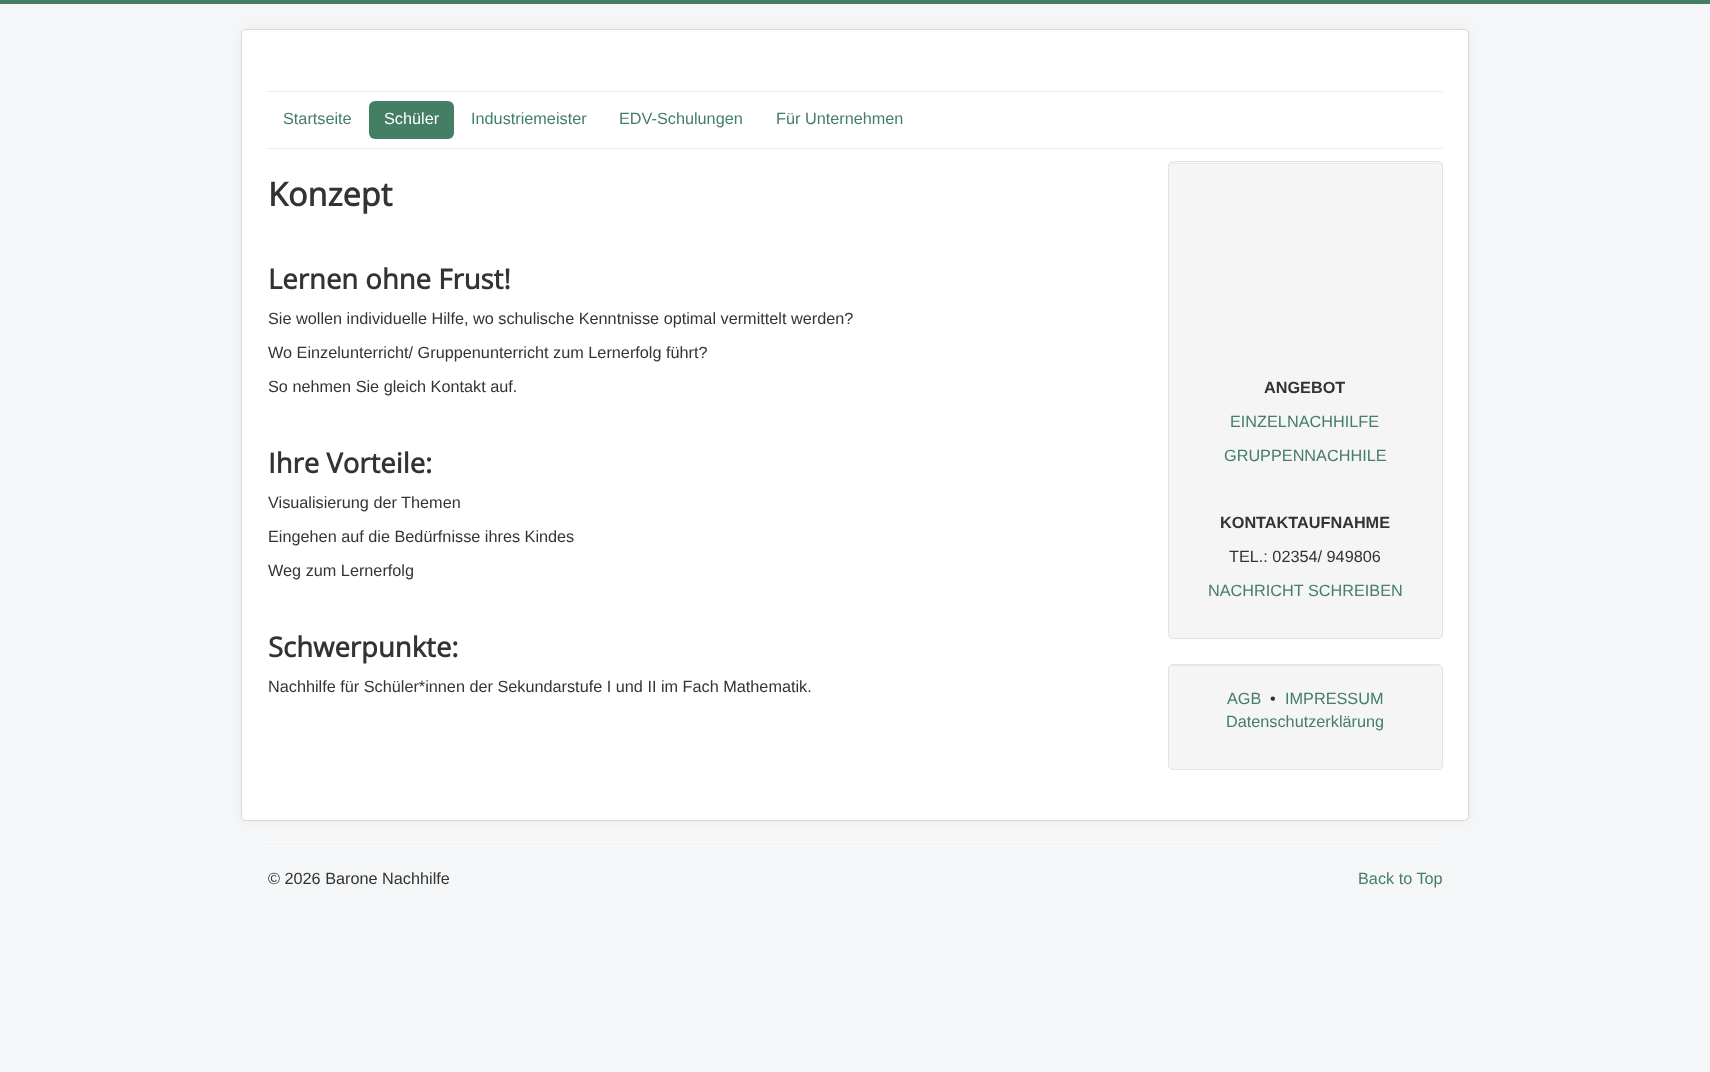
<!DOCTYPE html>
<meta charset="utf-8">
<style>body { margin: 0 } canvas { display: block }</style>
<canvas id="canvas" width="1710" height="1072"></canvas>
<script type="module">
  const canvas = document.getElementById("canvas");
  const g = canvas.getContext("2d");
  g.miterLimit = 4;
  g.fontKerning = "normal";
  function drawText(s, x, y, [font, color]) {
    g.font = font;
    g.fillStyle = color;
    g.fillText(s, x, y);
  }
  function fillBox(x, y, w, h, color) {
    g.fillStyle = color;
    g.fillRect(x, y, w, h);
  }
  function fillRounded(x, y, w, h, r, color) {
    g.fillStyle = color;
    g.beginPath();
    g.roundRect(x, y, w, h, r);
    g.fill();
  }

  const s1 = ["16.25px Liberation Sans", "#447E65"];
  const s2 = ["16.25px Liberation Sans", "#FFFFFF"];
  const s3 = ["bold 32.5px Open Sans", "#333333"];
  const s4 = ["bold 27.5px Open Sans", "#333333"];
  const s5 = ["16.25px Liberation Sans", "#333333"];
  const s6 = ["bold 16.25px Liberation Sans", "#333333"];

  fillBox(0, 0, 1710, 1072, "#F4F6F7");
  fillBox(0, 0, 1710, 4, "#447E65");
  g.fillStyle = "rgba(0, 0, 0, 0.05)";
  g.filter = "blur(4px)";
  g.beginPath();
  g.roundRect(241, 29, 1228, 792, 5);
  g.fill();
  g.filter = "none";
  fillRounded(241, 29, 1228, 792, 5, "#FFFFFF");
  g.beginPath();
  g.roundRect(241.5, 29.5, 1227, 791, 4.5);
  g.strokeStyle = "rgba(0, 0, 0, 0.15)";
  g.stroke();
  fillBox(268, 91, 1175, 1, "#ECECEC");
  fillBox(268, 148, 1175, 1, "#ECECEC");
  drawText("Startseite", 283, 124, s1);
  fillRounded(369, 101, 85, 38, 6, "#447E65");
  drawText("Schüler", 384, 124, s2);
  drawText("Industriemeister", 471, 124, s1);
  drawText("EDV-Schulungen", 619, 124, s1);
  drawText("Für Unternehmen", 776, 124, s1);
  drawText("Konzept", 268, 206, s3);
  drawText("Lernen ohne Frust!", 268, 289, s4);
  drawText("Sie wollen individuelle Hilfe, wo schulische Kenntnisse optimal vermittelt werden?", 268, 324, s5);
  drawText("Wo Einzelunterricht/ Gruppenunterricht zum Lernerfolg führt?", 268, 358, s5);
  drawText("So nehmen Sie gleich Kontakt auf.", 268, 392, s5);
  drawText("Ihre Vorteile:", 268, 473, s4);
  drawText("Visualisierung der Themen", 268, 508, s5);
  drawText("Eingehen auf die Bedürfnisse ihres Kindes", 268, 542, s5);
  drawText("Weg zum Lernerfolg", 268, 576, s5);
  drawText("Schwerpunkte:", 268, 657, s4);
  drawText("Nachhilfe für Schüler*innen der Sekundarstufe I und II im Fach Mathematik.", 268, 692, s5);
  fillRounded(1168, 161, 275, 478, 5, "#F5F5F5");
  g.fillStyle = "#E9E9E9";
  g.beginPath();
  g.moveTo(1172, 164);
  g.lineTo(1438, 164);
  g.bezierCurveTo(1440, 164, 1441, 165, 1441, 168);
  g.bezierCurveTo(1441, 165, 1440, 163, 1437, 163);
  g.lineTo(1173, 163);
  g.bezierCurveTo(1170, 163, 1169, 165, 1169, 168);
  g.bezierCurveTo(1169, 165, 1170, 164, 1172, 164);
  g.closePath();
  g.fill();
  g.beginPath();
  g.roundRect(1168.5, 161.5, 274, 477, 4.5);
  g.strokeStyle = "#E3E3E3";
  g.stroke();
  drawText("ANGEBOT", 1264, 393, s6);
  drawText("EINZELNACHHILFE", 1230, 427, s1);
  drawText("GRUPPENNACHHILE", 1224, 461, s1);
  drawText("KONTAKTAUFNAHME", 1220, 528, s6);
  drawText("TEL.: 02354/ 949806", 1229, 562, s5);
  drawText("NACHRICHT SCHREIBEN", 1208, 596, s1);
  fillRounded(1168, 664, 275, 106, 5, "#F5F5F5");
  g.fillStyle = "#E9E9E9";
  g.beginPath();
  g.moveTo(1172, 666);
  g.lineTo(1438, 666);
  g.bezierCurveTo(1440, 666, 1441, 668, 1441, 670);
  g.bezierCurveTo(1441, 667, 1440, 665, 1437, 665);
  g.lineTo(1173, 665);
  g.bezierCurveTo(1170, 665, 1169, 667, 1169, 670);
  g.bezierCurveTo(1169, 668, 1170, 666, 1172, 666);
  g.closePath();
  g.fill();
  g.beginPath();
  g.roundRect(1168.5, 664.5, 274, 105, 4.5);
  g.stroke();
  drawText("AGB", 1227, 704, s1);
  drawText("•", 1270, 704, s5);
  drawText("IMPRESSUM", 1285, 704, s1);
  drawText("Datenschutzerklärung", 1226, 727, s1);
  fillBox(268, 844, 1175, 1, "#EEEEEE");
  fillBox(268, 845, 1175, 1, "#FFFFFF");
  drawText("© 2026 Barone Nachhilfe", 268, 884, s5);
  drawText("Back to Top", 1358, 884, s1);
</script>
